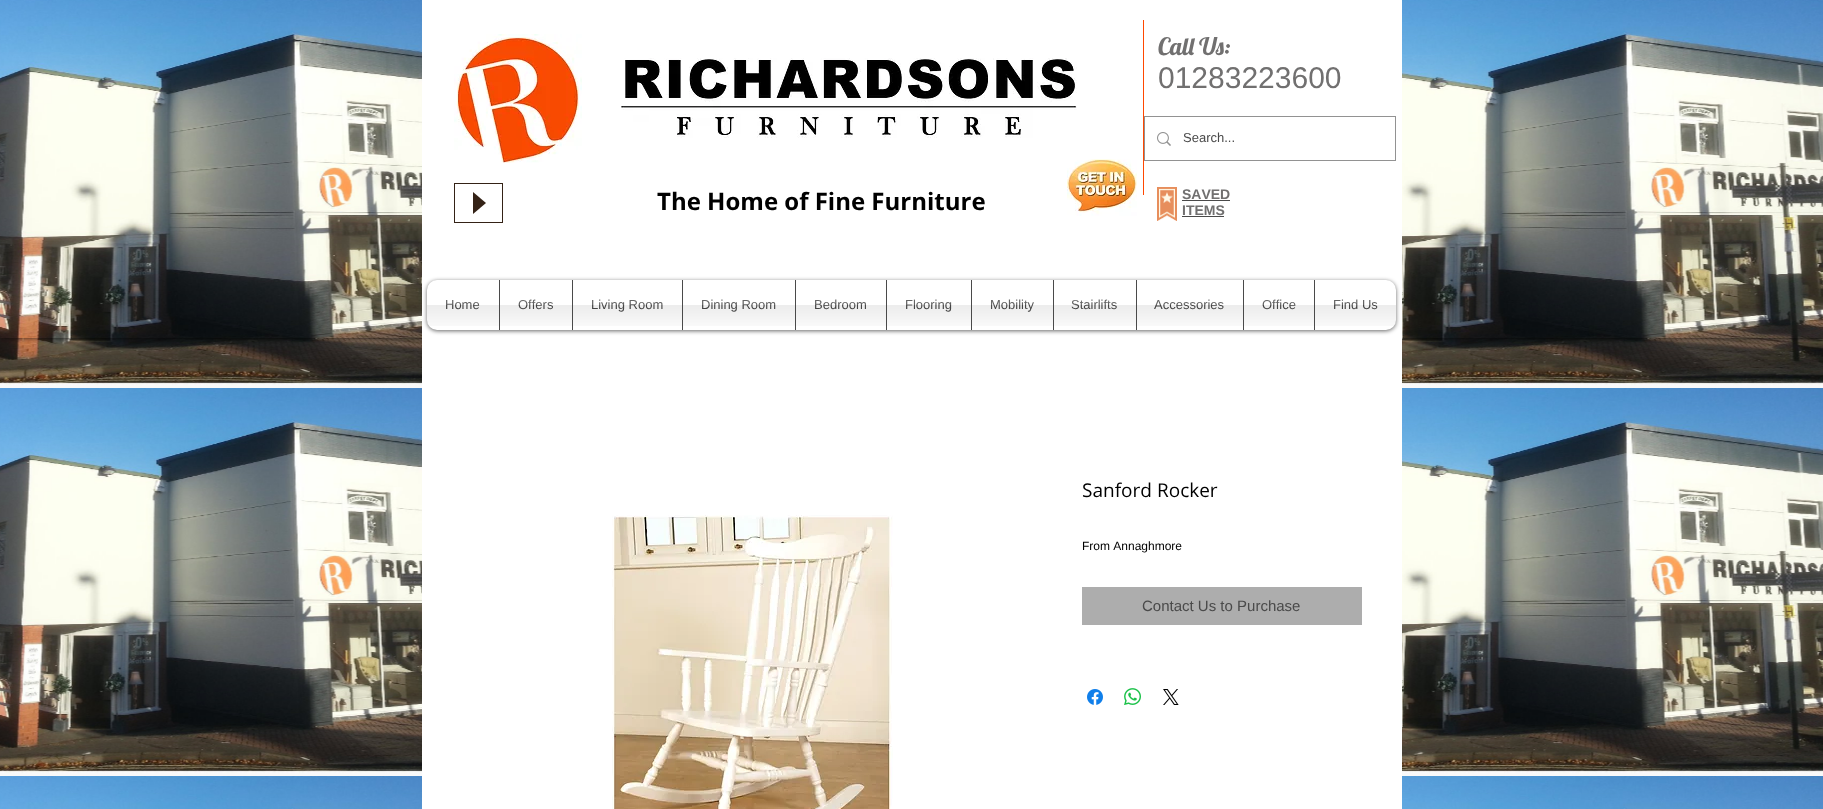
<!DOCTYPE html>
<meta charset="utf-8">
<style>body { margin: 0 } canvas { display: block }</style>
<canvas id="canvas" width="1823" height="809"></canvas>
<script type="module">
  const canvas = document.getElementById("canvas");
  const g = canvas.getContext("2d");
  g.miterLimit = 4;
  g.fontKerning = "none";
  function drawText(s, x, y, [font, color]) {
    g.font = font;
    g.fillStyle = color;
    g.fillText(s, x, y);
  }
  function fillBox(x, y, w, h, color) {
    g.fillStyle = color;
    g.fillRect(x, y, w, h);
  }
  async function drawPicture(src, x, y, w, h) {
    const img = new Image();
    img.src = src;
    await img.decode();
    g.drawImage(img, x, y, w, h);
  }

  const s1 = ["24px Lobster", "#717070"];
  const s2 = ["30px Liberation Sans", "#717070"];
  const s3 = ["13px Liberation Sans", "#4A4A4A"];
  const s4 = ["bold 24px Open Sans", "#000000"];
  const s5 = ["bold 14px Liberation Sans", "#717070"];
  const s6 = ["19px Open Sans", "#000000"];
  const s7 = ["12px Liberation Sans", "#000000"];
  const s8 = ["15px Liberation Sans", "#4A4A4A"];

  fillBox(0, 0, 1823, 809, "#FFFFFF");
  await drawPicture("pic1.png", 0, 0, 1823, 809);
  g.save();
  g.beginPath();
  g.rect(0, 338, 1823, 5);
  g.clip();
  g.fillStyle = "rgba(0, 0, 0, 0.7)";
  g.filter = "blur(2.5px)";
  g.beginPath();
  g.rect(0, 0, 1823, 338);
  g.fill();
  g.filter = "none";
  g.restore();
  fillBox(422, 0, 980, 809, "#FFFFFF");
  await drawPicture("pic2.png", 454, 34, 128, 129);
  await drawPicture("pic3.png", 621, 58, 456, 80);
  fillBox(1143, 20, 1, 175, "#FF4700");
  drawText("Call Us:", 1158, 55, s1);
  drawText("01283223600", 1158, 88, s2);
  g.strokeStyle = "#929292";
  g.strokeRect(1144.5, 116.5, 251, 44);
  await drawPicture("pic4.png", 1157, 132, 14, 14);
  drawText("Search...", 1183, 142, s3);
  drawText("The Home of Fine Furniture", 657, 210, s4);
  await drawPicture("pic5.png", 1067, 159, 70, 57);
  await drawPicture("pic6.png", 1157, 187, 20, 34);
  drawText("SAVED", 1182, 199, s5);
  fillBox(1182, 200, 48, 1, "#4A4A4A");
  drawText("ITEMS", 1182, 215, s5);
  fillBox(1182, 216, 42, 1, "#4A4A4A");
  g.fillStyle = "rgba(0, 0, 0, 0.6)";
  g.filter = "blur(2px)";
  g.beginPath();
  g.roundRect(427, 281, 969, 50, 10);
  g.fill();
  g.filter = "none";
  await drawPicture("pic7.png", 427, 320, 969, 2);
  g.fillStyle = "#FFFFFF";
  g.beginPath();
  g.roundRect(427, 280, 72, 50, [10, 0, 0, 10]);
  g.fill();
  drawText("Home", 445, 309, s3);
  await drawPicture("pic8.png", 427, 300, 72, 26);
  fillBox(500, 280, 72, 50, "#FFFFFF");
  fillBox(499, 280, 1, 50, "#4A4A4A");
  drawText("Offers", 518, 309, s3);
  await drawPicture("pic9.png", 500, 299, 72, 27);
  fillBox(573, 280, 109, 50, "#FFFFFF");
  fillBox(572, 280, 1, 50, "#4A4A4A");
  drawText("Living Room", 591, 309, s3);
  await drawPicture("pic10.png", 573, 299, 109, 27);
  fillBox(683, 280, 112, 50, "#FFFFFF");
  fillBox(682, 280, 1, 50, "#4A4A4A");
  drawText("Dining Room", 701, 309, s3);
  await drawPicture("pic11.png", 683, 299, 112, 27);
  fillBox(796, 280, 90, 50, "#FFFFFF");
  fillBox(795, 280, 1, 50, "#4A4A4A");
  drawText("Bedroom", 814, 309, s3);
  await drawPicture("pic12.png", 796, 299, 90, 27);
  fillBox(887, 280, 84, 50, "#FFFFFF");
  fillBox(886, 280, 1, 50, "#4A4A4A");
  drawText("Flooring", 905, 309, s3);
  await drawPicture("pic13.png", 887, 299, 84, 27);
  fillBox(972, 280, 81, 50, "#FFFFFF");
  fillBox(971, 280, 1, 50, "#4A4A4A");
  drawText("Mobility", 990, 309, s3);
  await drawPicture("pic14.png", 972, 299, 81, 27);
  fillBox(1054, 280, 82, 50, "#FFFFFF");
  fillBox(1053, 280, 1, 50, "#4A4A4A");
  drawText("Stairlifts", 1071, 309, s3);
  await drawPicture("pic15.png", 1054, 299, 82, 27);
  fillBox(1137, 280, 106, 50, "#FFFFFF");
  fillBox(1136, 280, 1, 50, "#4A4A4A");
  drawText("Accessories", 1154, 309, s3);
  await drawPicture("pic16.png", 1137, 299, 106, 27);
  fillBox(1244, 280, 70, 50, "#FFFFFF");
  fillBox(1243, 280, 1, 50, "#4A4A4A");
  drawText("Office", 1262, 309, s3);
  await drawPicture("pic17.png", 1244, 299, 70, 27);
  g.fillStyle = "#FFFFFF";
  g.beginPath();
  g.roundRect(1314, 280, 82, 50, [0, 10, 10, 0]);
  g.fill();
  fillBox(1314, 280, 1, 50, "#4A4A4A");
  drawText("Find Us", 1333, 309, s3);
  await drawPicture("pic18.png", 1315, 299, 81, 27);
  g.strokeStyle = "#342216";
  g.strokeRect(454.5, 183.5, 48, 39);
  g.fillStyle = "#342216";
  g.beginPath();
  g.moveTo(473, 214);
  g.lineTo(473, 192);
  g.lineTo(486, 203);
  g.closePath();
  g.fill();
  await drawPicture("pic19.png", 612, 515, 281, 294);
  drawText("Sanford Rocker", 1082, 497, s6);
  drawText("From Annaghmore", 1082, 550, s7);
  fillBox(1082, 587, 280, 38, "#ADADAD");
  drawText("Contact Us to Purchase", 1142, 611, s8);
  await drawPicture("pic20.png", 1087, 689, 16, 16);
  await drawPicture("pic21.png", 1124, 688, 17, 17);
  await drawPicture("pic22.png", 1163, 689, 16, 16);
</script>
